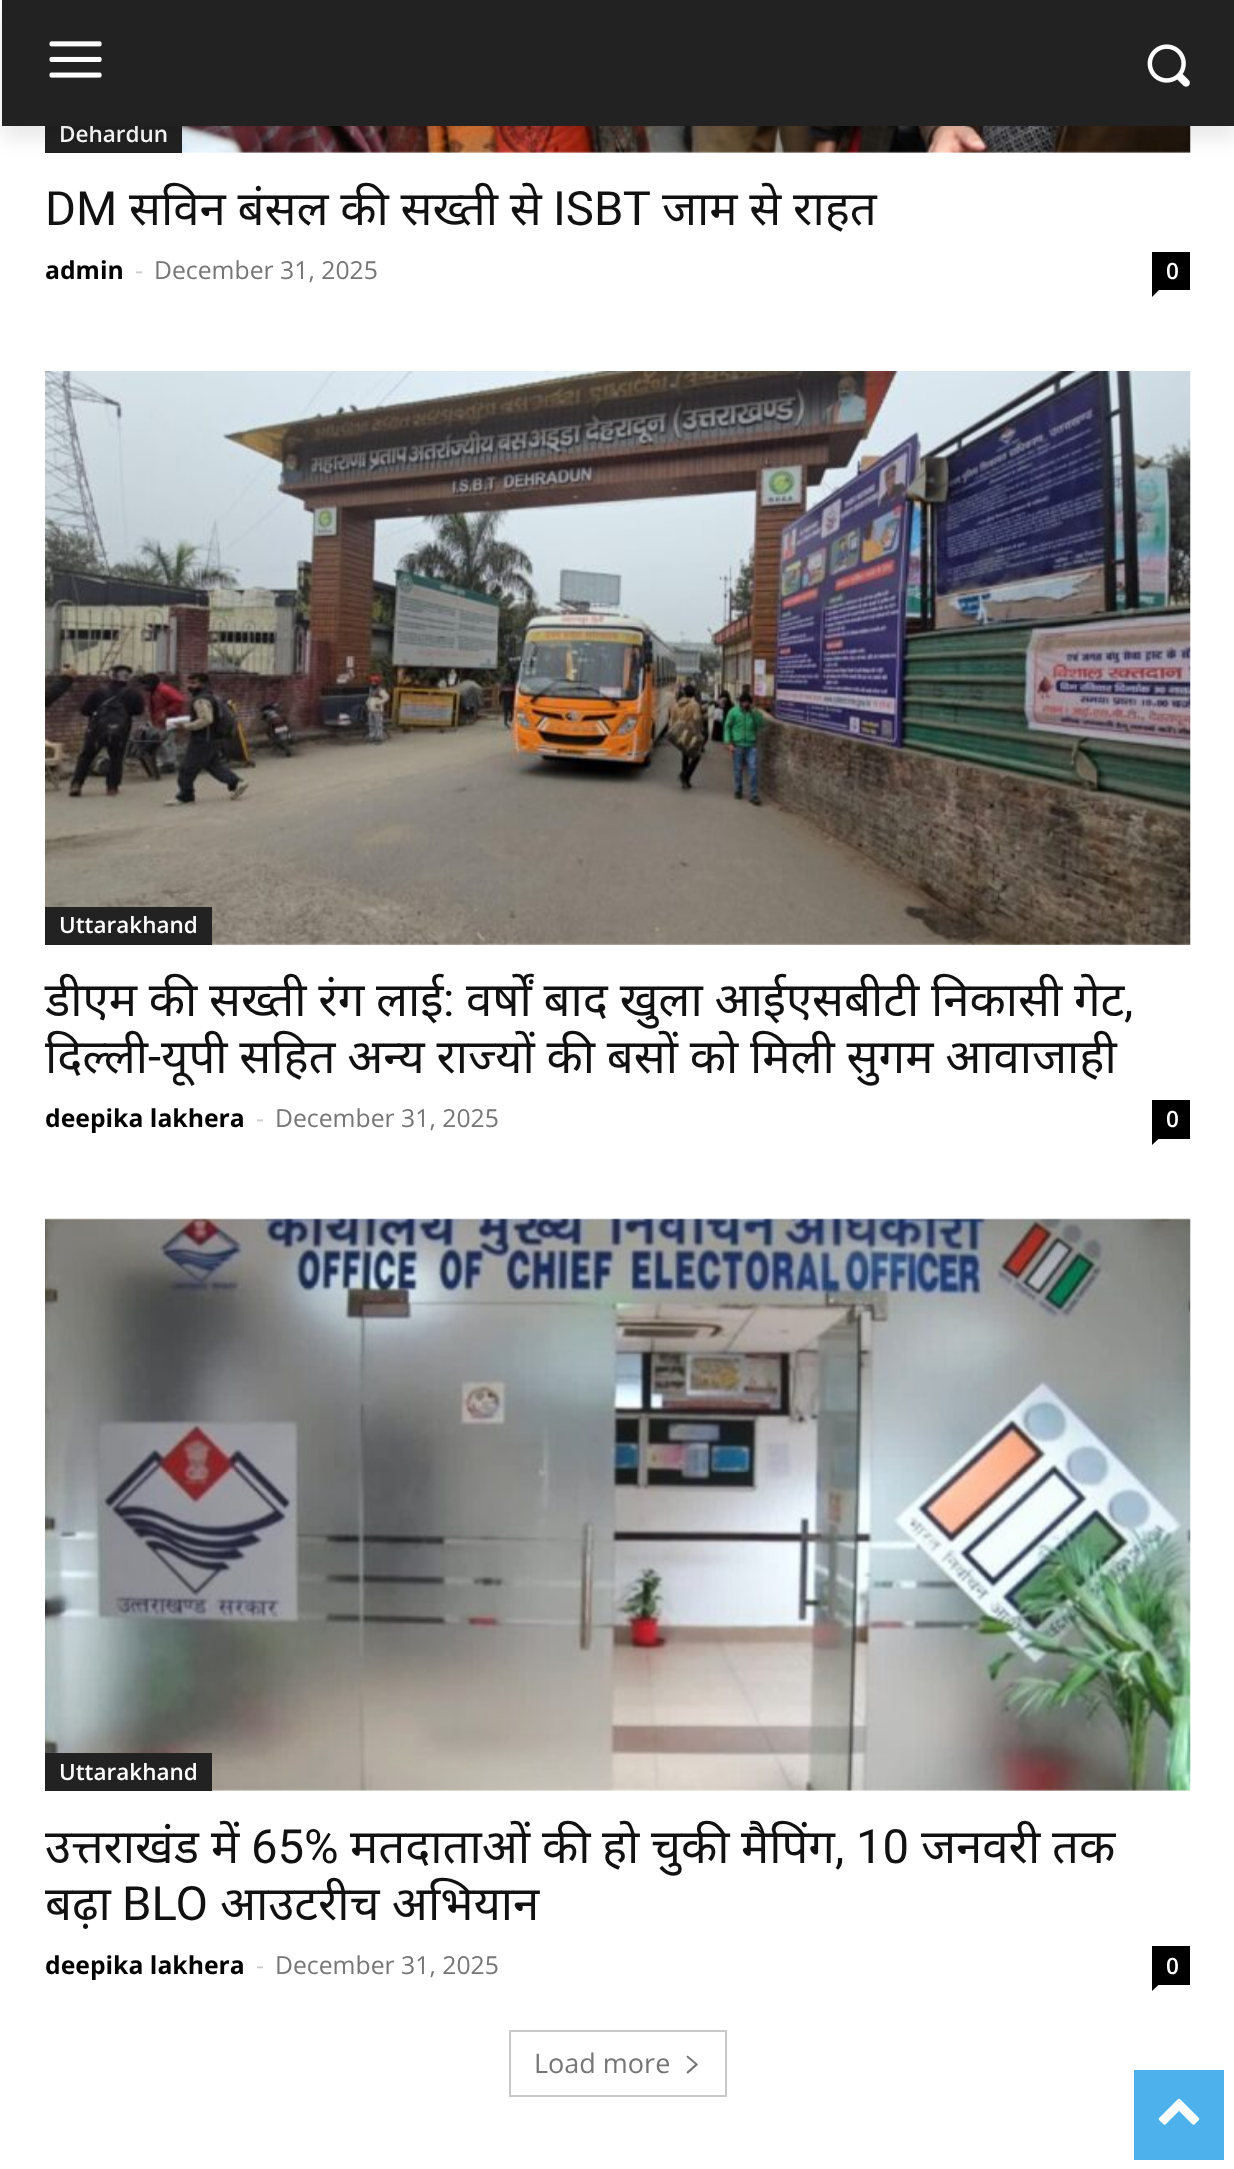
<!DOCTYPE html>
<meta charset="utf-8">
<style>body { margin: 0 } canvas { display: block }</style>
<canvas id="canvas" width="1234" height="2169"></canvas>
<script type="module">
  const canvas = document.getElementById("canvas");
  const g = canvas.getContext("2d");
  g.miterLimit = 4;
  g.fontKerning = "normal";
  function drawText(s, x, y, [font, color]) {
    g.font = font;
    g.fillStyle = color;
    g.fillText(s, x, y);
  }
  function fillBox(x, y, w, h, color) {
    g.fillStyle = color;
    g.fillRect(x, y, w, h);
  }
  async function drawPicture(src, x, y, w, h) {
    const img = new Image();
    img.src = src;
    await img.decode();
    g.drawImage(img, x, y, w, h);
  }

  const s1 = ["600 22.5px Open Sans", "#FFFFFF"];
  const s2 = ["47.25px Roboto", "#111111"];
  const s3 = ["47.25px Noto Sans", "#111111"];
  const s4 = ["bold 24.75px Open Sans", "#000000"];
  const s5 = ["24.75px Open Sans", "#CCCCCC"];
  const s6 = ["24.75px Open Sans", "#767676"];
  const s7 = ["27px Open Sans", "#767676"];

  fillBox(0, 0, 1234, 2169, "#FFFFFF");
  fillBox(45, 126, 137, 27, "#222222");
  drawText("Dehardun", 59, 142, s1);
  fillBox(2, 0, 1232, 126, "#222222");
  await drawPicture("pic1.png", 49, 41, 53, 37);
  await drawPicture("pic2.png", 1147, 44, 43, 43);
  await drawPicture("pic3.png", 182, 126, 1009, 27);
  g.save();
  g.beginPath();
  g.moveTo(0, 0);
  g.lineTo(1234, 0);
  g.lineTo(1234, 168);
  g.lineTo(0, 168);
  g.closePath();
  g.moveTo(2, 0);
  g.lineTo(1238, 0);
  g.lineTo(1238, 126);
  g.lineTo(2, 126);
  g.closePath();
  g.clip("evenodd");
  g.fillStyle = "rgba(0, 0, 0, 0.08)";
  g.filter = "blur(9px)";
  g.beginPath();
  g.rect(2, 14, 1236, 126);
  g.fill();
  g.filter = "none";
  g.restore();
  drawText("DM", 45, 225, s2);
  g.wordSpacing = "-0.5px";
  drawText("सविन बंसल की सख्ती से", 129, 225, s3);
  g.wordSpacing = "0px";
  drawText("ISBT", 553, 225, s2);
  g.wordSpacing = "-0.5px";
  drawText("जाम से राहत", 662, 225, s3);
  g.wordSpacing = "0px";
  drawText("admin", 45, 279, s4);
  drawText("-", 135, 279, s5);
  drawText("December 31, 2025", 154, 279, s6);
  fillBox(1152, 252, 38, 38, "#000000");
  drawText("0", 1166, 279, s1);
  g.fillStyle = "#000000";
  g.beginPath();
  g.moveTo(1152, 290);
  g.lineTo(1159, 290);
  g.lineTo(1152, 297);
  g.closePath();
  g.fill();
  await drawPicture("pic4.png", 45, 371, 1146, 574);
  fillBox(45, 907, 167, 38, "#222222");
  drawText("Uttarakhand", 59, 933, s1);
  g.wordSpacing = "-0.5px";
  drawText("डीएम की सख्ती रंग लाई", 45, 1016, s3);
  g.wordSpacing = "0px";
  drawText(":", 443, 1016, s2);
  g.wordSpacing = "-0.5px";
  drawText("वर्षों बाद खुला आईएसबीटी निकासी गेट", 466, 1016, s3);
  g.wordSpacing = "0px";
  drawText(",", 1124, 1016, s2);
  drawText("दिल्ली", 45, 1073, s3);
  drawText("-", 148, 1073, s2);
  g.wordSpacing = "-0.5px";
  drawText("यूपी सहित अन्य राज्यों की बसों को मिली सुगम आवाजाही", 161, 1073, s3);
  g.wordSpacing = "0px";
  drawText("deepika lakhera", 45, 1127, s4);
  drawText("-", 256, 1127, s5);
  drawText("December 31, 2025", 275, 1127, s6);
  fillBox(1152, 1100, 38, 39, "#000000");
  drawText("0", 1166, 1127, s1);
  g.fillStyle = "#000000";
  g.beginPath();
  g.moveTo(1152, 1138.5);
  g.lineTo(1159, 1138.5);
  g.lineTo(1152, 1145);
  g.closePath();
  g.fill();
  await drawPicture("pic5.png", 45, 1218, 1146, 573);
  fillBox(45, 1753, 167, 38, "#222222");
  drawText("Uttarakhand", 59, 1780, s1);
  drawText("उत्तराखंड", 45, 1863, s3);
  drawText("में", 211, 1863, s3);
  drawText("65%", 251, 1863, s2);
  drawText("मतदाताओं", 350, 1863, s3);
  drawText("की", 542, 1863, s3);
  drawText("हो", 602, 1863, s3);
  drawText("चुकी", 651, 1863, s3);
  drawText("मैपिंग", 741, 1863, s3);
  drawText(", 10", 835, 1863, s2);
  drawText("जनवरी", 921, 1863, s3);
  drawText("तक", 1052, 1863, s3);
  drawText("बढ़ा", 45, 1920, s3);
  drawText("BLO", 122, 1920, s2);
  drawText("आउटरीच अभियान", 220, 1920, s3);
  drawText("deepika lakhera", 45, 1974, s4);
  drawText("-", 256, 1974, s5);
  drawText("December 31, 2025", 275, 1974, s6);
  fillBox(1152, 1946, 38, 39, "#000000");
  drawText("0", 1166, 1974, s1);
  g.fillStyle = "#000000";
  g.beginPath();
  g.moveTo(1152, 1984.5);
  g.lineTo(1159, 1984.5);
  g.lineTo(1152, 1991);
  g.closePath();
  g.fill();
  g.strokeStyle = "#C9C9C9";
  g.lineWidth = 2;
  g.strokeRect(510, 2031, 216, 65);
  drawText("Load more", 534, 2073, s7);
  await drawPicture("pic6.png", 686, 2055, 12, 19);
  fillBox(1134, 2070, 90, 90, "#4DB2EC");
  await drawPicture("pic7.png", 1158, 2098, 42, 27);
</script>
